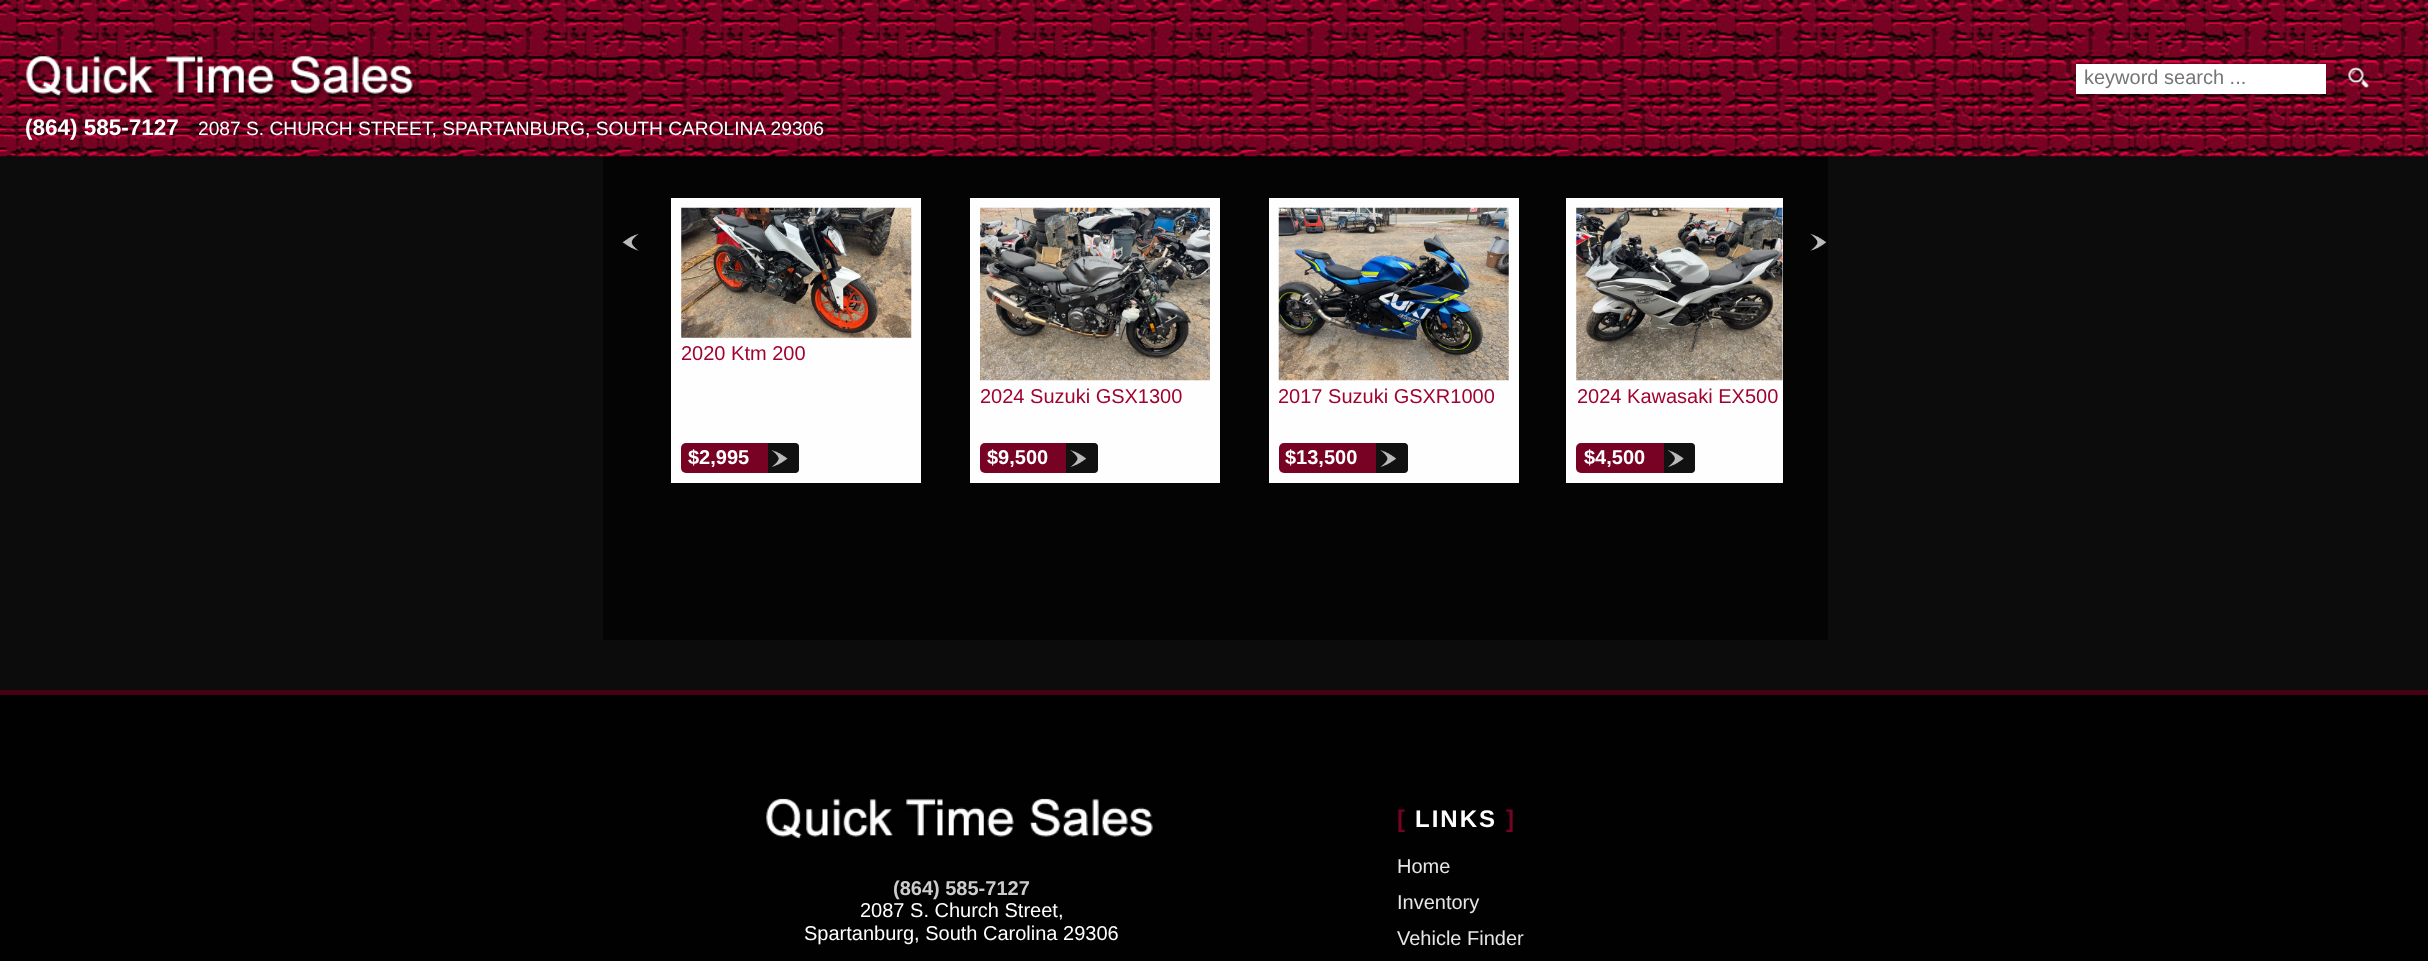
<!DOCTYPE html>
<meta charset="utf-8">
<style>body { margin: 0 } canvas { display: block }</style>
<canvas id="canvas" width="2428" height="961"></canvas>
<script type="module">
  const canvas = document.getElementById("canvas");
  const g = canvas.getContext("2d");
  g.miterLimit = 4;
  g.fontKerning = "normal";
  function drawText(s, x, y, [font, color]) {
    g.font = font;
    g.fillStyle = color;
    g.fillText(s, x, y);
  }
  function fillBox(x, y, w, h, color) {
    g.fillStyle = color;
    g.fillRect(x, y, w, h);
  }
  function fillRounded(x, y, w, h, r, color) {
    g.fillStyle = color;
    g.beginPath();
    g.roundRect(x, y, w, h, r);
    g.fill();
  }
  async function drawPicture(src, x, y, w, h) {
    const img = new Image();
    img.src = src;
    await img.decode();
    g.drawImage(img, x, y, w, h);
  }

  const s1 = ["20px Liberation Sans", "#757575"];
  const s2 = ["bold 22.5px Liberation Sans", "#FFFFFF"];
  const s3 = ["19.2px Liberation Sans", "#FFFFFF"];
  const s4 = ["20px Liberation Sans", "#A00330"];
  const s5 = ["bold 20px Liberation Sans", "#FFFFFF"];
  const s6 = ["bold 20px Liberation Sans", "#CCCCCC"];
  const s7 = ["20px Liberation Sans", "#FFFFFF"];
  const s8 = ["bold 24px Liberation Sans", "#780224"];
  const s9 = ["bold 24px Liberation Sans", "#FFFFFF"];
  const s10 = ["20px Liberation Sans", "#E6E6E6"];

  fillBox(0, 0, 2428, 961, "#0C0C0C");
  fillBox(603, 156, 1225, 484, "#040404");
  await drawPicture("pic1.png", 0, 0, 2428, 157);
  await drawPicture("pic2.png", 26, 56, 391, 45);
  fillBox(2076, 64, 250, 30, "#FFFFFF");
  drawText("keyword search ...", 2084, 84, s1);
  await drawPicture("pic3.png", 2347, 67, 22, 21);
  drawText("(864) 585-7127", 25, 135, s2);
  drawText("2087 S. CHURCH STREET, SPARTANBURG, SOUTH CAROLINA 29306", 198, 135, s3);
  await drawPicture("pic4.png", 622, 233, 17, 18);
  await drawPicture("pic5.png", 1810, 233, 17, 18);
  fillBox(671, 198, 250, 285, "#FEFEFE");
  await drawPicture("pic6.png", 681, 207, 231, 131);
  drawText("2020 Ktm 200", 681, 360, s4);
  fillRounded(681, 443, 118, 30, 5, "#780224");
  drawText("$2,995", 688, 464, s5);
  g.fillStyle = "#111111";
  g.beginPath();
  g.roundRect(768, 443, 31, 30, [0, 4, 4, 0]);
  g.fill();
  await drawPicture("pic7.png", 771, 450, 17, 17);
  fillBox(970, 198, 250, 285, "#FEFEFE");
  await drawPicture("pic8.png", 980, 207, 230, 174);
  drawText("2024 Suzuki GSX1300", 980, 403, s4);
  fillRounded(980, 443, 118, 30, 5, "#780224");
  drawText("$9,500", 987, 464, s5);
  g.fillStyle = "#111111";
  g.beginPath();
  g.roundRect(1066, 443, 32, 30, [0, 4, 4, 0]);
  g.fill();
  await drawPicture("pic9.png", 1070, 450, 17, 17);
  fillBox(1269, 198, 250, 285, "#FEFEFE");
  await drawPicture("pic10.png", 1278, 207, 231, 174);
  drawText("2017 Suzuki GSXR1000", 1278, 403, s4);
  fillRounded(1279, 443, 129, 30, 5, "#780224");
  drawText("$13,500", 1285, 464, s5);
  g.fillStyle = "#111111";
  g.beginPath();
  g.roundRect(1376, 443, 32, 30, [0, 4, 4, 0]);
  g.fill();
  await drawPicture("pic11.png", 1380, 450, 17, 17);
  fillBox(1566, 198, 217, 285, "#FEFEFE");
  await drawPicture("pic12.png", 1576, 207, 207, 174);
  drawText("2024 Kawasaki EX500", 1577, 403, s4);
  fillRounded(1576, 443, 119, 30, 5, "#780224");
  drawText("$4,500", 1584, 464, s5);
  g.fillStyle = "#111111";
  g.beginPath();
  g.roundRect(1664, 443, 31, 30, [0, 4, 4, 0]);
  g.fill();
  await drawPicture("pic13.png", 1667, 450, 17, 17);
  fillBox(0, 695, 2428, 266, "#010101");
  fillBox(0, 690, 2428, 5, "#460115");
  await drawPicture("pic14.png", 766, 798, 387, 41);
  drawText("(864) 585-7127", 893, 895, s6);
  drawText("2087 S. Church Street,", 860, 917, s7);
  drawText("Spartanburg, South Carolina 29306", 804, 940, s7);
  g.letterSpacing = "2px";
  drawText("[", 1397, 827, s8);
  drawText("LINKS", 1415, 827, s9);
  drawText("]", 1506, 827, s8);
  g.letterSpacing = "0px";
  drawText("Home", 1397, 873, s10);
  drawText("Inventory", 1397, 909, s10);
  drawText("Vehicle Finder", 1397, 945, s10);
</script>
